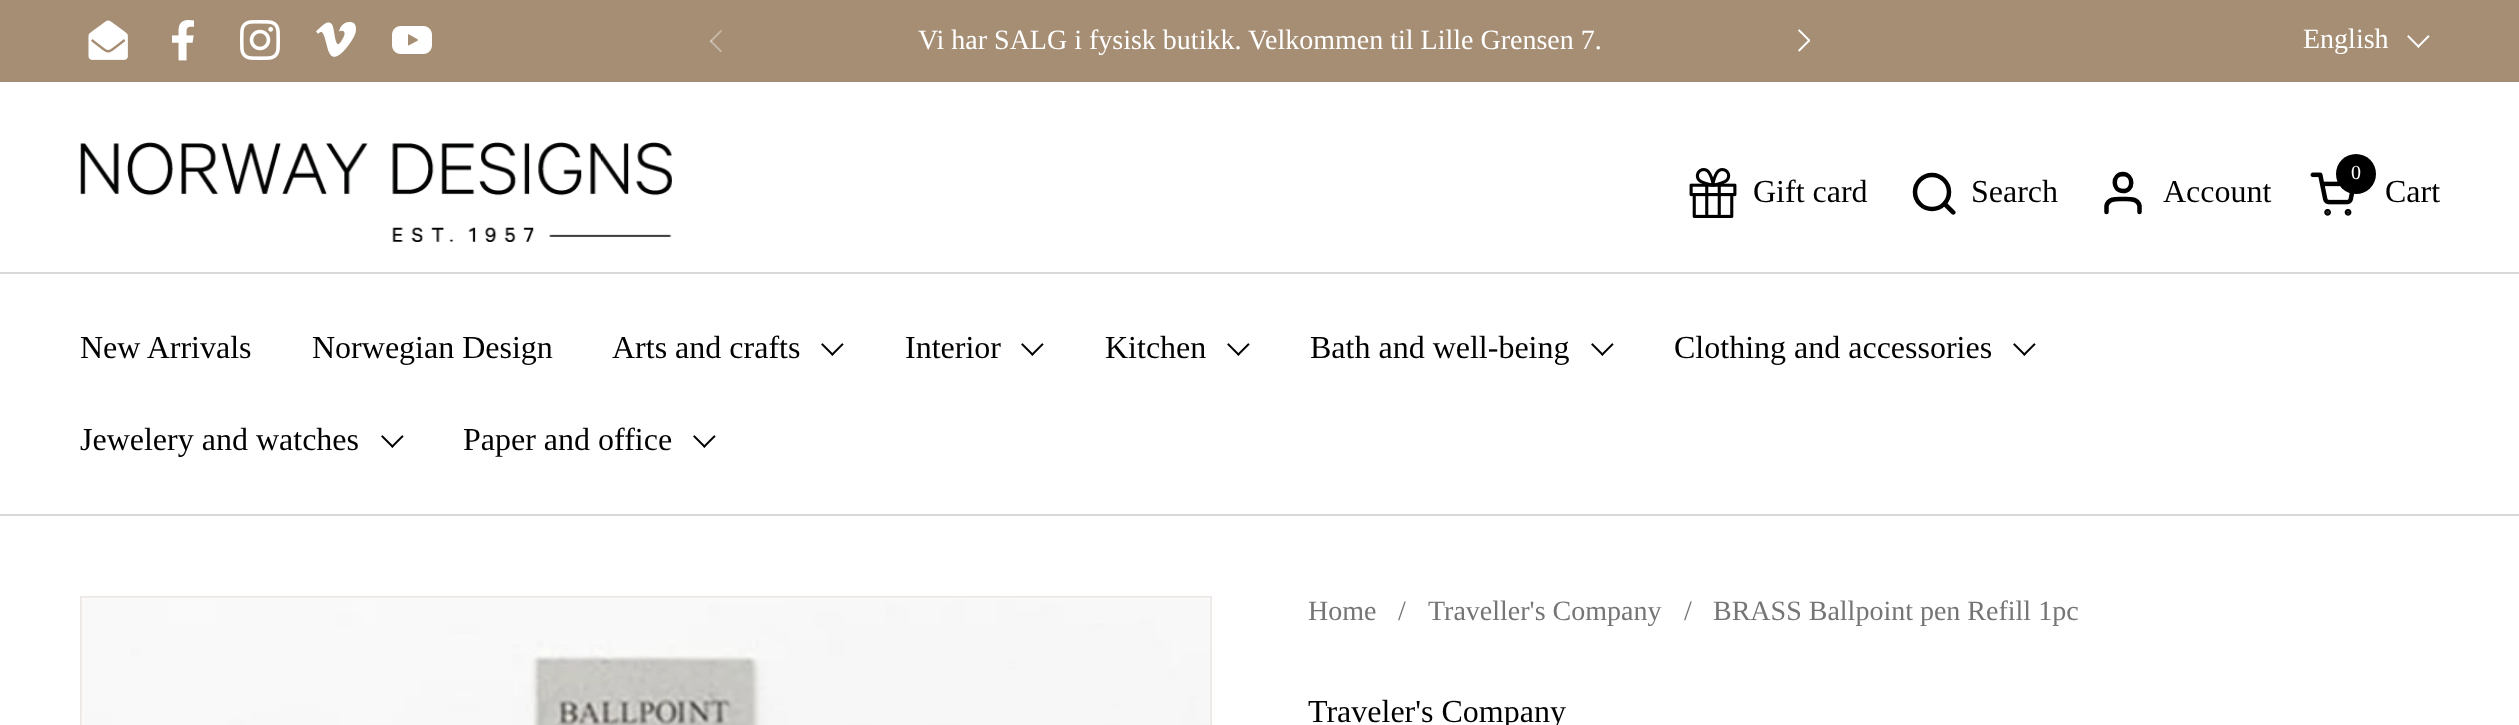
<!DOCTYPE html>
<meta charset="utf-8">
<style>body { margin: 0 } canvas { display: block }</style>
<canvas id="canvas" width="2519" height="725"></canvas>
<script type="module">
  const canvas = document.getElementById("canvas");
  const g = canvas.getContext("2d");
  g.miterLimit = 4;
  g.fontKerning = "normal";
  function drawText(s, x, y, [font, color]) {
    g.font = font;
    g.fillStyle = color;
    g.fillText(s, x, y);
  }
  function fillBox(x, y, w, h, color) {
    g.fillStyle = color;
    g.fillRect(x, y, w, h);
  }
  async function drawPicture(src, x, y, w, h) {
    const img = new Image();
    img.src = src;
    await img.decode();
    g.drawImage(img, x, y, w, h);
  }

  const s1 = ["28px Liberation Serif", "#FFFFFF"];
  const s2 = ["32px Liberation Serif", "#000000"];
  const s3 = ["20px Liberation Serif", "#FFFFFF"];
  const s4 = ["28px Liberation Serif", "#757575"];

  fillBox(0, 0, 2519, 725, "#FFFFFF");
  fillBox(0, 0, 2519, 82, "#A58E74");
  await drawPicture("pic1.png", 88, 20, 40, 40);
  await drawPicture("pic2.png", 172, 20, 22, 41);
  await drawPicture("pic3.png", 240, 20, 40, 40);
  await drawPicture("pic4.png", 316, 22, 40, 35);
  await drawPicture("pic5.png", 392, 26, 40, 28);
  await drawPicture("pic6.png", 710, 30, 12, 22);
  drawText("Vi har SALG i fysisk butikk. Velkommen til Lille Grensen 7.", 918, 49, s1);
  await drawPicture("pic7.png", 1798, 29, 12, 23);
  drawText("English", 2303, 48, s1);
  await drawPicture("pic8.png", 2407, 35, 23, 13);
  await drawPicture("pic9.png", 80, 142, 592, 100);
  await drawPicture("pic10.png", 1689, 168, 48, 50);
  drawText("Gift card", 1753, 202, s2);
  g.beginPath();
  g.arc(1932, 192, 17, 0, Math.PI * 2);
  g.strokeStyle = "#000000";
  g.lineWidth = 4.5;
  g.stroke();
  g.beginPath();
  g.moveTo(1947, 203);
  g.lineTo(1945.5, 201);
  g.lineTo(1942, 204.5);
  g.lineTo(1943.5, 206);
  g.closePath();
  g.moveTo(1951.5, 214);
  g.bezierCurveTo(1954, 216, 1957, 213, 1955, 211);
  g.closePath();
  g.moveTo(1943.5, 206);
  g.lineTo(1951.5, 214);
  g.lineTo(1955, 211);
  g.lineTo(1947, 203);
  g.closePath();
  g.fill();
  drawText("Search", 1971, 202, s2);
  g.beginPath();
  g.moveTo(2139.5, 212);
  g.lineTo(2139.5, 206);
  g.bezierCurveTo(2138, 198, 2129, 199, 2123, 199);
  g.bezierCurveTo(2117, 199, 2108, 198, 2106.5, 206);
  g.lineTo(2106.5, 212);
  g.moveTo(2123, 191);
  g.bezierCurveTo(2134, 191, 2134, 174.5, 2123, 174);
  g.bezierCurveTo(2112, 174, 2112, 191, 2123, 191);
  g.closePath();
  g.lineCap = "round";
  g.lineJoin = "round";
  g.stroke();
  drawText("Account", 2163, 202, s2);
  g.beginPath();
  g.arc(2356, 174, 20, 0, Math.PI * 2);
  g.fill();
  drawText("0", 2351, 179, s3);
  await drawPicture("pic11.png", 2310, 172, 44, 44);
  drawText("Cart", 2385, 202, s2);
  fillBox(0, 272, 2519, 2, "#D9D9D9");
  drawText("New Arrivals", 80, 358, s2);
  drawText("Norwegian Design", 312, 358, s2);
  drawText("Arts and crafts", 612, 358, s2);
  await drawPicture("pic12.png", 821, 343, 23, 13);
  drawText("Interior", 905, 358, s2);
  await drawPicture("pic12.png", 1021, 343, 23, 13);
  drawText("Kitchen", 1105, 358, s2);
  await drawPicture("pic12.png", 1227, 343, 23, 13);
  drawText("Bath and well-being", 1310, 358, s2);
  await drawPicture("pic12.png", 1591, 343, 23, 13);
  drawText("Clothing and accessories", 1674, 358, s2);
  await drawPicture("pic12.png", 2013, 343, 23, 13);
  drawText("Jewelery and watches", 80, 450, s2);
  await drawPicture("pic12.png", 381, 435, 23, 13);
  drawText("Paper and office", 463, 450, s2);
  await drawPicture("pic12.png", 693, 435, 23, 13);
  fillBox(0, 514, 2519, 2, "#D9D9D9");
  g.strokeStyle = "#EDE8E5";
  g.lineWidth = 2;
  g.lineJoin = "miter";
  g.strokeRect(81, 597, 1130, 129);
  await drawPicture("pic13.png", 81, 597, 1130, 128);
  drawText("Home", 1308, 620, s4);
  drawText("/", 1398, 620, s4);
  drawText("Traveller's Company", 1428, 620, s4);
  drawText("/", 1684, 620, s4);
  drawText("BRASS Ballpoint pen Refill 1pc", 1713, 620, s4);
  drawText("Traveler's Company", 1308, 722, s2);
</script>
